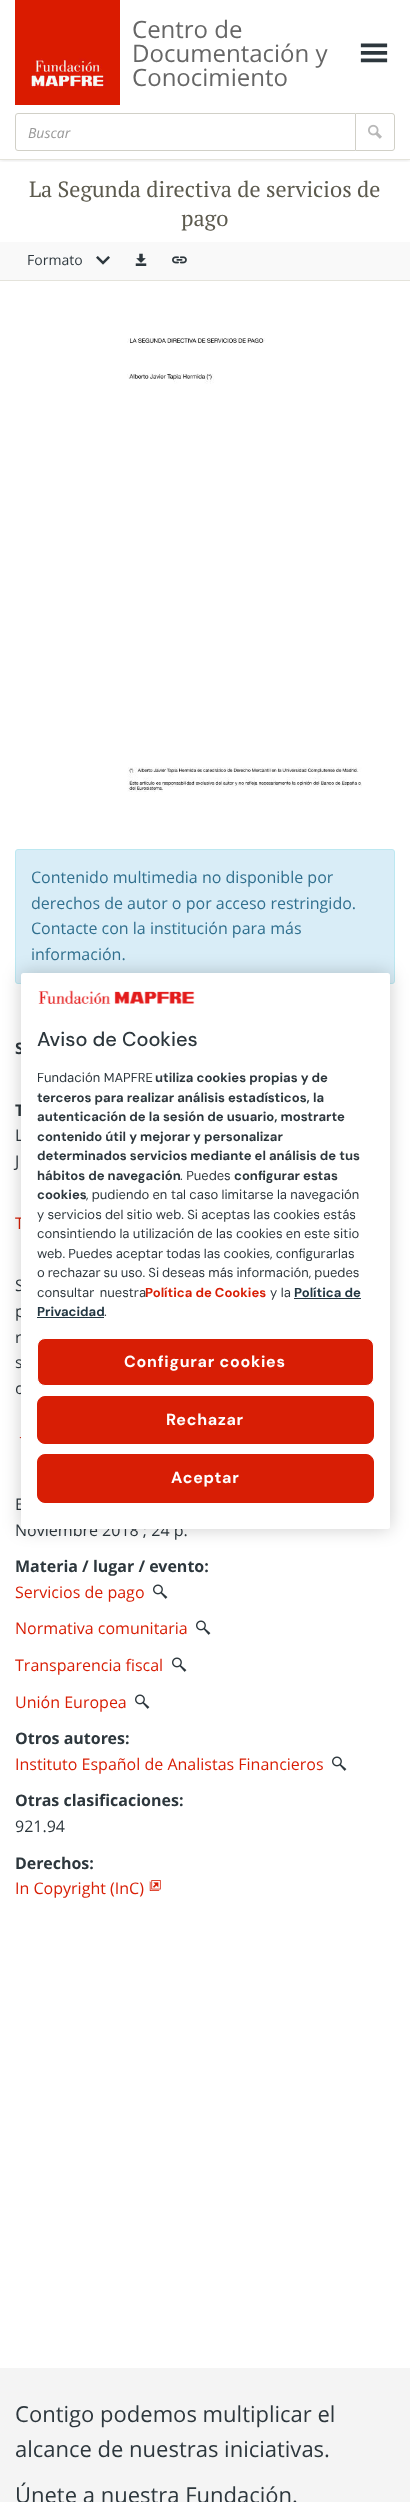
<!DOCTYPE html>
<meta charset="utf-8">
<style>body { margin: 0 } canvas { display: block }</style>
<canvas id="canvas" width="410" height="2502"></canvas>
<script type="module">
  const canvas = document.getElementById("canvas");
  const g = canvas.getContext("2d");
  g.miterLimit = 4;
  g.fontKerning = "normal";
  function drawText(s, x, y, [font, color]) {
    g.font = font;
    g.fillStyle = color;
    g.fillText(s, x, y);
  }
  function fillBox(x, y, w, h, color) {
    g.fillStyle = color;
    g.fillRect(x, y, w, h);
  }
  function fillRounded(x, y, w, h, r, color) {
    g.fillStyle = color;
    g.beginPath();
    g.roundRect(x, y, w, h, r);
    g.fill();
  }
  async function drawPicture(src, x, y, w, h) {
    const img = new Image();
    img.src = src;
    await img.decode();
    g.drawImage(img, x, y, w, h);
  }

  const s1 = ["24px Open Sans", "#666666"];
  const s2 = ["italic 14px Open Sans", "#999999"];
  const s3 = ["22px PT Serif", "#5C5A4E"];
  const s4 = ["14px Open Sans", "#2D373D"];
  const s5 = ["16px Open Sans", "#31708F"];
  const s6 = ["bold 16px Open Sans", "#2D373D"];
  const s7 = ["16px Open Sans", "#2D373D"];
  const s8 = ["16px Open Sans", "#D81E05"];
  const s9 = ["500 20px DM Sans", "#2D373D"];
  const s10 = ["13px DM Sans", "#2D373D"];
  const s11 = ["bold 13px DM Sans", "#2D373D"];
  const s12 = ["bold 13px DM Sans", "#D81E05"];
  const s13 = ["bold 13px DM Sans", "#233742"];
  const s14 = ["bold 16px 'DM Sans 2'", "#FFFFFF"];
  const s15 = ["22px Open Sans", "#2D373D"];

  fillBox(0, 0, 410, 2502, "#FFFFFF");
  g.save();
  g.beginPath();
  g.rect(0, 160, 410, 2);
  g.clip();
  g.fillStyle = "rgba(0, 0, 0, 0.2)";
  g.filter = "blur(2.5px)";
  g.beginPath();
  g.rect(0, -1, 410, 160);
  g.fill();
  g.filter = "none";
  g.restore();
  fillBox(0, 159, 410, 1, "#E4E3DB");
  await drawPicture("pic1.png", 15, 0, 105, 105);
  drawText("Centro de", 132, 38, s1);
  drawText("Documentación y", 132, 62, s1);
  drawText("Conocimiento", 132, 86, s1);
  await drawPicture("pic2.png", 360, 43, 28, 20);
  g.beginPath();
  g.roundRect(15.5, 113.5, 340, 37, [2.5, 0, 0, 2.5]);
  g.strokeStyle = "#D1D0C7";
  g.stroke();
  drawText("Buscar", 28, 138, s2);
  g.fillStyle = "#D1D0C7";
  g.beginPath();
  g.moveTo(356, 113);
  g.lineTo(392, 113);
  g.bezierCurveTo(393.5, 113, 395, 114.5, 395, 116);
  g.lineTo(395, 148);
  g.bezierCurveTo(395, 149.5, 393.5, 151, 392, 151);
  g.lineTo(356, 151);
  g.closePath();
  g.moveTo(356, 114);
  g.lineTo(392, 114);
  g.bezierCurveTo(393, 114, 394, 115, 394, 116);
  g.lineTo(394, 148);
  g.bezierCurveTo(394, 149, 393, 150, 392, 150);
  g.lineTo(356, 150);
  g.closePath();
  g.fill("evenodd");
  await drawPicture("pic3.png", 368, 124, 14, 15);
  drawText("La Segunda directiva de servicios de", 29, 197, s3);
  drawText("pago", 181, 226, s3);
  fillBox(0, 242, 410, 38, "#F9F9F9");
  fillBox(0, 280, 410, 1, "#E4E3DB");
  drawText("Formato", 27, 265, s4);
  await drawPicture("pic4.png", 96, 256, 14, 9);
  await drawPicture("pic5.png", 135, 253, 12, 13);
  await drawPicture("pic6.png", 172, 256, 15, 8);
  await drawPicture("pic7.png", 127, 338, 235, 454);
  g.fillStyle = "#D9EDF7";
  g.beginPath();
  g.roundRect(15.5, 849.5, 379, 134, 2.5);
  g.fill();
  g.strokeStyle = "#BCE8F1";
  g.stroke();
  drawText("Contenido multimedia no disponible por", 31, 883, s5);
  drawText("derechos de autor o por acceso restringido.", 31, 909, s5);
  drawText("Contacte con la institución para más", 31, 934, s5);
  drawText("información.", 31, 960, s5);
  drawText("S", 15, 1054, s6);
  drawText("T", 15, 1116, s6);
  drawText("L", 15, 1141, s7);
  drawText("J", 15, 1167, s7);
  drawText("T", 15, 1229, s8);
  drawText("S", 15, 1291, s7);
  drawText("p", 15, 1317, s7);
  drawText("r", 15, 1343, s7);
  drawText("s", 15, 1368, s7);
  drawText("c", 15, 1394, s7);
  g.fillStyle = "#D81E05";
  g.beginPath();
  g.moveTo(19.5, 1437);
  g.lineTo(25, 1442.5);
  g.lineTo(30.5, 1437);
  g.closePath();
  g.fill();
  drawText("E", 15, 1510, s7);
  drawText("Noviembre 2018 ; 24 p.", 15, 1536, s7);
  drawText("Materia / lugar / evento:", 15, 1572, s6);
  drawText("Servicios de pago", 15, 1598, s8);
  await drawPicture("pic8.png", 153, 1584, 15, 15);
  drawText("Normativa comunitaria", 15, 1634, s8);
  await drawPicture("pic8.png", 196, 1620, 15, 15);
  drawText("Transparencia fiscal", 15, 1671, s8);
  await drawPicture("pic8.png", 172, 1657, 15, 15);
  drawText("Unión Europea", 15, 1708, s8);
  await drawPicture("pic8.png", 135, 1694, 15, 15);
  drawText("Otros autores:", 15, 1744, s6);
  drawText("Instituto Español de Analistas Financieros", 15, 1770, s8);
  await drawPicture("pic8.png", 332, 1756, 15, 15);
  drawText("Otras clasificaciones:", 15, 1806, s6);
  drawText("921.94", 15, 1832, s7);
  drawText("Derechos:", 15, 1869, s6);
  drawText("In Copyright (InC)", 15, 1894, s8);
  await drawPicture("pic9.png", 149, 1880, 12, 11);
  g.fillStyle = "rgba(0, 0, 0, 0.2)";
  g.filter = "blur(9px)";
  g.beginPath();
  g.roundRect(21, 973, 369, 556, 2.5);
  g.fill();
  g.filter = "none";
  fillRounded(21, 973, 369, 556, 2.5, "#FFFFFF");
  await drawPicture("pic10.png", 38, 990, 157, 14);
  drawText("Aviso de Cookies", 37, 1046, s9);
  drawText("Fundación MAPFRE", 37, 1082, s10);
  drawText("utiliza cookies propias y de", 155, 1082, s11);
  drawText("terceros para realizar análisis estadísticos, la", 37, 1102, s11);
  drawText("autenticación de la sesión de usuario, mostrarte", 37, 1121, s11);
  drawText("contenido útil y mejorar y personalizar", 37, 1141, s11);
  drawText("determinados servicios mediante el análisis de tus", 37, 1160, s11);
  drawText("hábitos de navegación", 37, 1180, s11);
  drawText(". Puedes", 180, 1180, s10);
  drawText("configurar estas", 234, 1180, s11);
  drawText("cookies", 37, 1199, s11);
  g.wordSpacing = "-0.25px";
  drawText(", pudiendo en tal caso limitarse la navegación", 86, 1199, s10);
  drawText("y servicios del sitio web. Si aceptas las cookies estás", 37, 1219, s10);
  drawText("consintiendo la utilización de las cookies en este sitio", 37, 1238, s10);
  g.wordSpacing = "-0.5px";
  drawText("web. Puedes aceptar todas las cookies, configurarlas", 37, 1258, s10);
  drawText("o rechazar su uso. Si deseas más información, puedes", 37, 1277, s10);
  g.wordSpacing = "2px";
  drawText("consultar nuestra", 37, 1297, s10);
  g.wordSpacing = "0px";
  drawText("Política de Cookies", 145, 1297, s12);
  drawText("y la", 270, 1297, s10);
  drawText("Política de", 294, 1297, s13);
  fillBox(294, 1298, 67, 1, "#233742");
  drawText("Privacidad", 37, 1316, s13);
  fillBox(37, 1317, 67, 1, "#233742");
  drawText(".", 104, 1316, s10);
  g.fillStyle = "#D81E05";
  g.beginPath();
  g.roundRect(37.5, 1338.5, 336, 47, 7.5);
  g.fill();
  g.strokeStyle = "#FFFFFF";
  g.stroke();
  g.letterSpacing = "0.75px";
  drawText("Configurar cookies", 124, 1367, s14);
  g.fillStyle = "#D81E05";
  g.beginPath();
  g.roundRect(37.5, 1396.5, 336, 47, 7.5);
  g.fill();
  g.strokeStyle = "#D81E05";
  g.stroke();
  drawText("Rechazar", 166, 1425, s14);
  g.fillStyle = "#D81E05";
  g.beginPath();
  g.roundRect(37.5, 1454.5, 336, 48, 7.5);
  g.fill();
  g.stroke();
  drawText("Aceptar", 171, 1483, s14);
  fillBox(0, 2368, 410, 134, "#F4F4F4");
  g.letterSpacing = "0px";
  drawText("Contigo podemos multiplicar el", 15, 2422, s15);
  drawText("alcance de nuestras iniciativas.", 15, 2457, s15);
  drawText("Únete a nuestra Fundación.", 15, 2503, s15);
</script>
